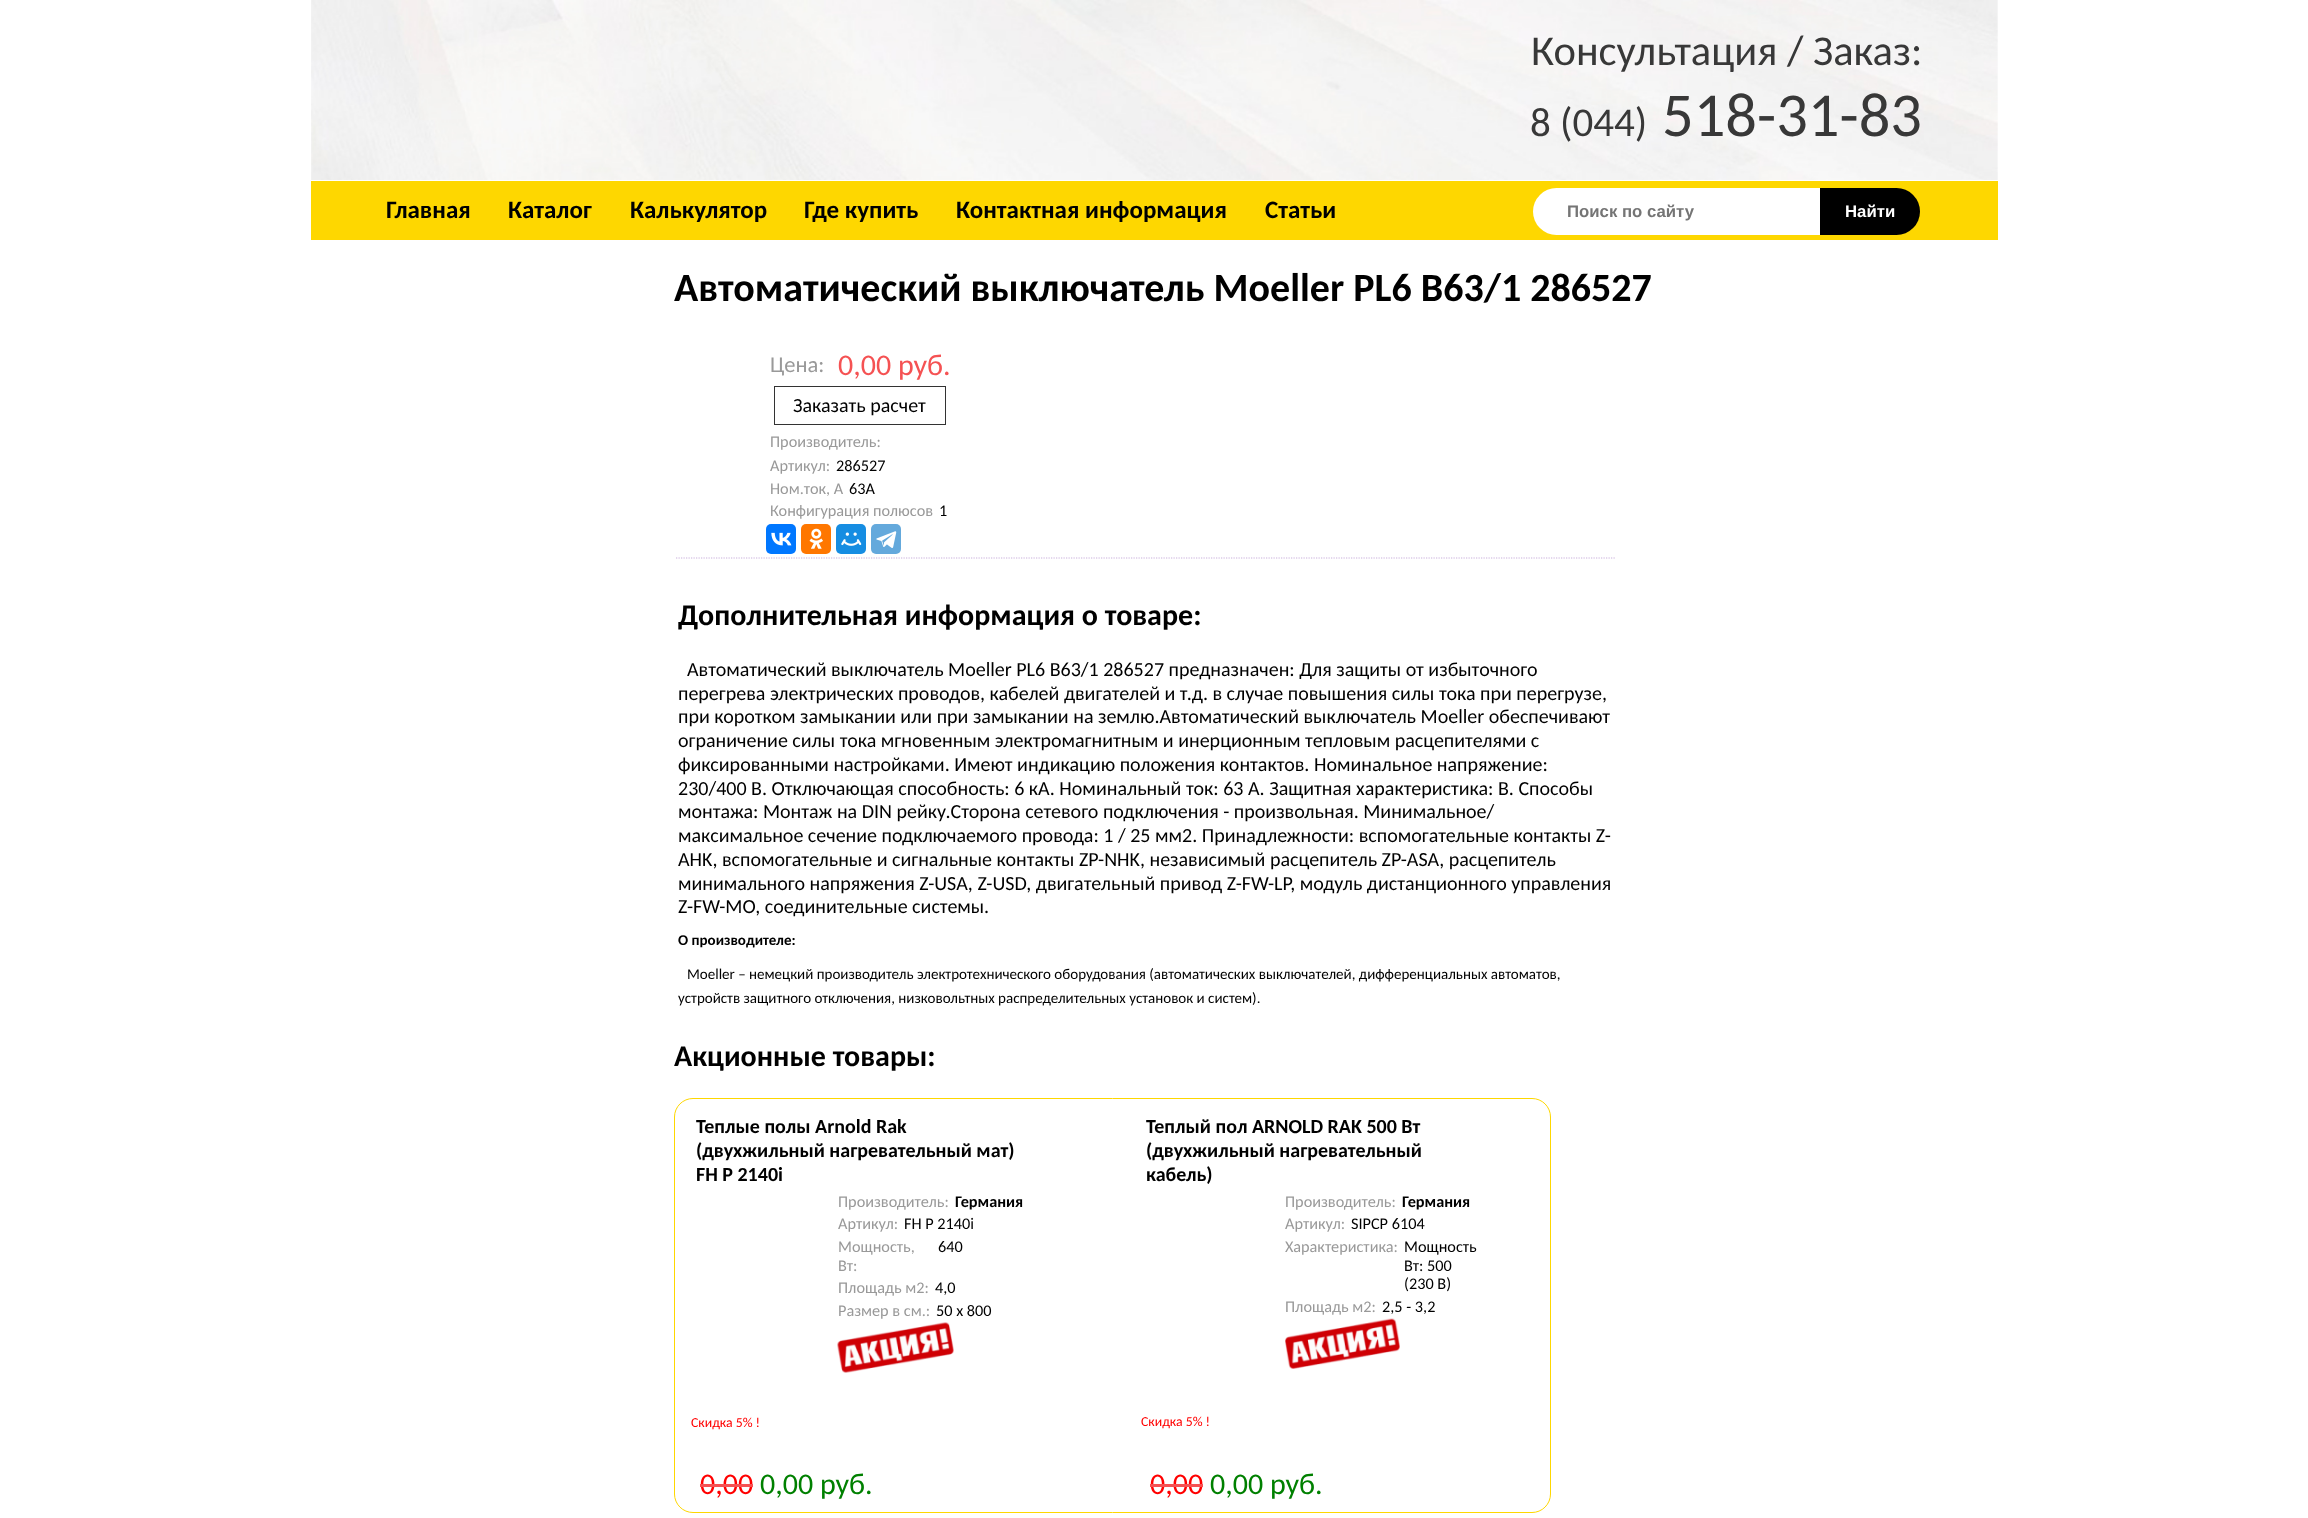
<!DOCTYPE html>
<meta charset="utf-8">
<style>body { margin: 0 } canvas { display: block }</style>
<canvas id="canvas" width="2308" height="1518"></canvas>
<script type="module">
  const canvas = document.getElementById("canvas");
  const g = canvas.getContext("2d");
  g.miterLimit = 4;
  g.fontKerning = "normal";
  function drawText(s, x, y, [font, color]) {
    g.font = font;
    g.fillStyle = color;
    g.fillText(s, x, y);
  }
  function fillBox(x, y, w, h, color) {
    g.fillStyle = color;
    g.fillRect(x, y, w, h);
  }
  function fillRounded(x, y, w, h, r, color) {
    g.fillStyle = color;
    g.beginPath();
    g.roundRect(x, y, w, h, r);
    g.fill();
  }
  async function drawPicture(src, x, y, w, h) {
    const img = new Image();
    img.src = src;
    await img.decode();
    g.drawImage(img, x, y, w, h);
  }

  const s1 = ["42.5px Carlito", "#383838"];
  const s2 = ["41px Carlito", "#383838"];
  const s3 = ["62.5px Carlito", "#383838"];
  const s4 = ["bold 25px Carlito", "#000000"];
  const s5 = ["bold 16.75px Liberation Sans", "#757575"];
  const s6 = ["bold 16.75px Liberation Sans", "#FFFFFF"];
  const s7 = ["bold 40px Carlito", "#000000"];
  const s8 = ["22.5px Carlito", "#999999"];
  const s9 = ["30px Carlito", "#F55253"];
  const s10 = ["20px Carlito", "#000000"];
  const s11 = ["16.25px Carlito", "#999999"];
  const s12 = ["16.25px Carlito", "#000000"];
  const s13 = ["bold 30px Carlito", "#000000"];
  const s14 = ["bold 15px Carlito", "#000000"];
  const s15 = ["15px Carlito", "#000000"];
  const s16 = ["bold 20px Carlito", "#000000"];
  const s17 = ["bold 16.25px Carlito", "#000000"];
  const s18 = ["13.75px Carlito", "#FF0000"];
  const s19 = ["30px Carlito", "#FF0000"];
  const s20 = ["30px Carlito", "#008000"];

  fillBox(0, 0, 2308, 1518, "#FFFFFF");
  await drawPicture("pic1.png", 311, 0, 1687, 180);
  await drawPicture("pic2.png", 311, 0, 1687, 180);
  drawText("Консультация / Заказ:", 1531, 65, s1);
  drawText("8 (044)", 1530, 136, s2);
  drawText("518-31-83", 1662, 136, s3);
  fillBox(311, 181, 1687, 59, "#FED700");
  drawText("Главная", 386, 218, s4);
  drawText("Каталог", 508, 218, s4);
  drawText("Калькулятор", 630, 218, s4);
  drawText("Где купить", 804, 218, s4);
  drawText("Контактная информация", 956, 218, s4);
  drawText("Статьи", 1265, 218, s4);
  g.fillStyle = "#FFFFFF";
  g.beginPath();
  g.roundRect(1533, 188, 287, 47, [23.5, 0, 0, 23.5]);
  g.fill();
  drawText("Поиск по сайту", 1567, 217, s5);
  g.fillStyle = "#000000";
  g.beginPath();
  g.roundRect(1820, 188, 100, 47, [0, 23.5, 23.5, 0]);
  g.fill();
  drawText("Найти", 1845, 217, s6);
  drawText("Автоматический выключатель Moeller PL6 B63/1 286527", 674, 301, s7);
  drawText("Цена:", 770, 372, s8);
  drawText("0,00 руб.", 838, 375, s9);
  g.strokeStyle = "#333333";
  g.strokeRect(774.5, 386.5, 171, 38);
  drawText("Заказать расчет", 793, 412, s10);
  drawText("Производитель:", 770, 447, s11);
  drawText("Артикул:", 770, 471, s11);
  drawText("286527", 836, 471, s12);
  drawText("Ном.ток, А", 770, 494, s11);
  drawText("63A", 849, 494, s12);
  drawText("Конфигурация полюсов", 770, 516, s11);
  drawText("1", 939, 516, s12);
  fillRounded(766, 524, 30, 30, 5, "#0077FF");
  await drawPicture("pic3.png", 771, 532, 21, 14);
  fillRounded(801, 524, 30, 30, 5, "#FF7700");
  await drawPicture("pic4.png", 809, 528, 14, 21);
  fillRounded(836, 524, 30, 30, 5, "#168DE2");
  await drawPicture("pic5.png", 841, 532, 21, 14);
  fillRounded(871, 524, 30, 30, 5, "#64A9DC");
  await drawPicture("pic6.png", 876, 531, 21, 17);
  g.beginPath();
  g.moveTo(676, 558);
  g.lineTo(1616, 558);
  g.strokeStyle = "#C9AFDC";
  g.lineWidth = 1.2;
  g.setLineDash([1.25, 1.25]);
  g.stroke();
  drawText("Дополнительная информация о товаре:", 678, 625, s13);
  drawText("Автоматический выключатель Moeller PL6 B63/1 286527 предназначен: Для защиты от избыточного", 687, 676, s10);
  drawText("перегрева электрических проводов, кабелей двигателей и т.д. в случае повышения силы тока при перегрузе,", 678, 700, s10);
  drawText("при коротком замыкании или при замыкании на землю.Автоматический выключатель Moeller обеспечивают", 678, 723, s10);
  drawText("ограничение силы тока мгновенным электромагнитным и инерционным тепловым расцепителями с", 678, 747, s10);
  drawText("фиксированными настройками. Имеют индикацию положения контактов. Номинальное напряжение:", 678, 771, s10);
  drawText("230/400 В. Отключающая способность: 6 кА. Номинальный ток: 63 А. Защитная характеристика: B. Способы", 678, 795, s10);
  drawText("монтажа: Монтаж на DIN рейку.Сторона сетевого подключения - произвольная. Минимальное/", 678, 818, s10);
  drawText("максимальное сечение подключаемого провода: 1 / 25 мм2. Принадлежности: вспомогательные контакты Z-", 678, 842, s10);
  drawText("AHK, вспомогательные и сигнальные контакты ZP-NHK, независимый расцепитель ZP-ASA, расцепитель", 678, 866, s10);
  drawText("минимального напряжения Z-USA, Z-USD, двигательный привод Z-FW-LP, модуль дистанционного управления", 678, 890, s10);
  drawText("Z-FW-MO, соединительные системы.", 678, 913, s10);
  drawText("О производителе:", 678, 945, s14);
  drawText("Moeller – немецкий производитель электротехнического оборудования (автоматических выключателей, дифференциальных автоматов,", 687, 979, s15);
  drawText("устройств защитного отключения, низковольтных распределительных установок и систем).", 678, 1003, s15);
  drawText("Акционные товары:", 674, 1066, s13);
  g.beginPath();
  g.roundRect(674.5, 1098.5, 876, 414, 18.5);
  g.strokeStyle = "#FED700";
  g.lineWidth = 1;
  g.setLineDash([]);
  g.stroke();
  drawText("Теплые полы Arnold Rak", 696, 1133, s16);
  drawText("(двухжильный нагревательный мат)", 696, 1157, s16);
  drawText("FH P 2140i", 696, 1181, s16);
  drawText("Производитель:", 838, 1207, s11);
  drawText("Германия", 955, 1207, s17);
  drawText("Артикул:", 838, 1229, s11);
  drawText("FH P 2140i", 904, 1229, s12);
  drawText("Мощность,", 838, 1252, s11);
  drawText("Вт:", 838, 1271, s11);
  drawText("640", 938, 1252, s12);
  drawText("Площадь м2:", 838, 1293, s11);
  drawText("4,0", 935, 1293, s12);
  drawText("Размер в см.:", 838, 1316, s11);
  drawText("50 х 800", 936, 1316, s12);
  await drawPicture("pic7.png", 837, 1322, 117, 51);
  drawText("Скидка 5% !", 691, 1427, s18);
  drawText("0,00", 700, 1494, s19);
  fillBox(700, 1484, 53, 3, "#F55253");
  drawText("0,00 руб.", 760, 1494, s20);
  drawText("Теплый пол ARNOLD RAK 500 Вт", 1146, 1133, s16);
  drawText("(двухжильный нагревательный", 1146, 1157, s16);
  drawText("кабель)", 1146, 1181, s16);
  drawText("Производитель:", 1285, 1207, s11);
  drawText("Германия", 1402, 1207, s17);
  drawText("Артикул:", 1285, 1229, s11);
  drawText("SIPCP 6104", 1351, 1229, s12);
  drawText("Характеристика:", 1285, 1252, s11);
  drawText("Мощность", 1404, 1252, s12);
  drawText("Вт: 500", 1404, 1271, s12);
  drawText("(230 В)", 1404, 1289, s12);
  drawText("Площадь м2:", 1285, 1312, s11);
  drawText("2,5 - 3,2", 1382, 1312, s12);
  await drawPicture("pic8.png", 1285, 1318, 115, 51);
  drawText("Скидка 5% !", 1141, 1426, s18);
  drawText("0,00", 1150, 1494, s19);
  fillBox(1150, 1484, 53, 3, "#F55253");
  drawText("0,00 руб.", 1210, 1494, s20);
</script>
